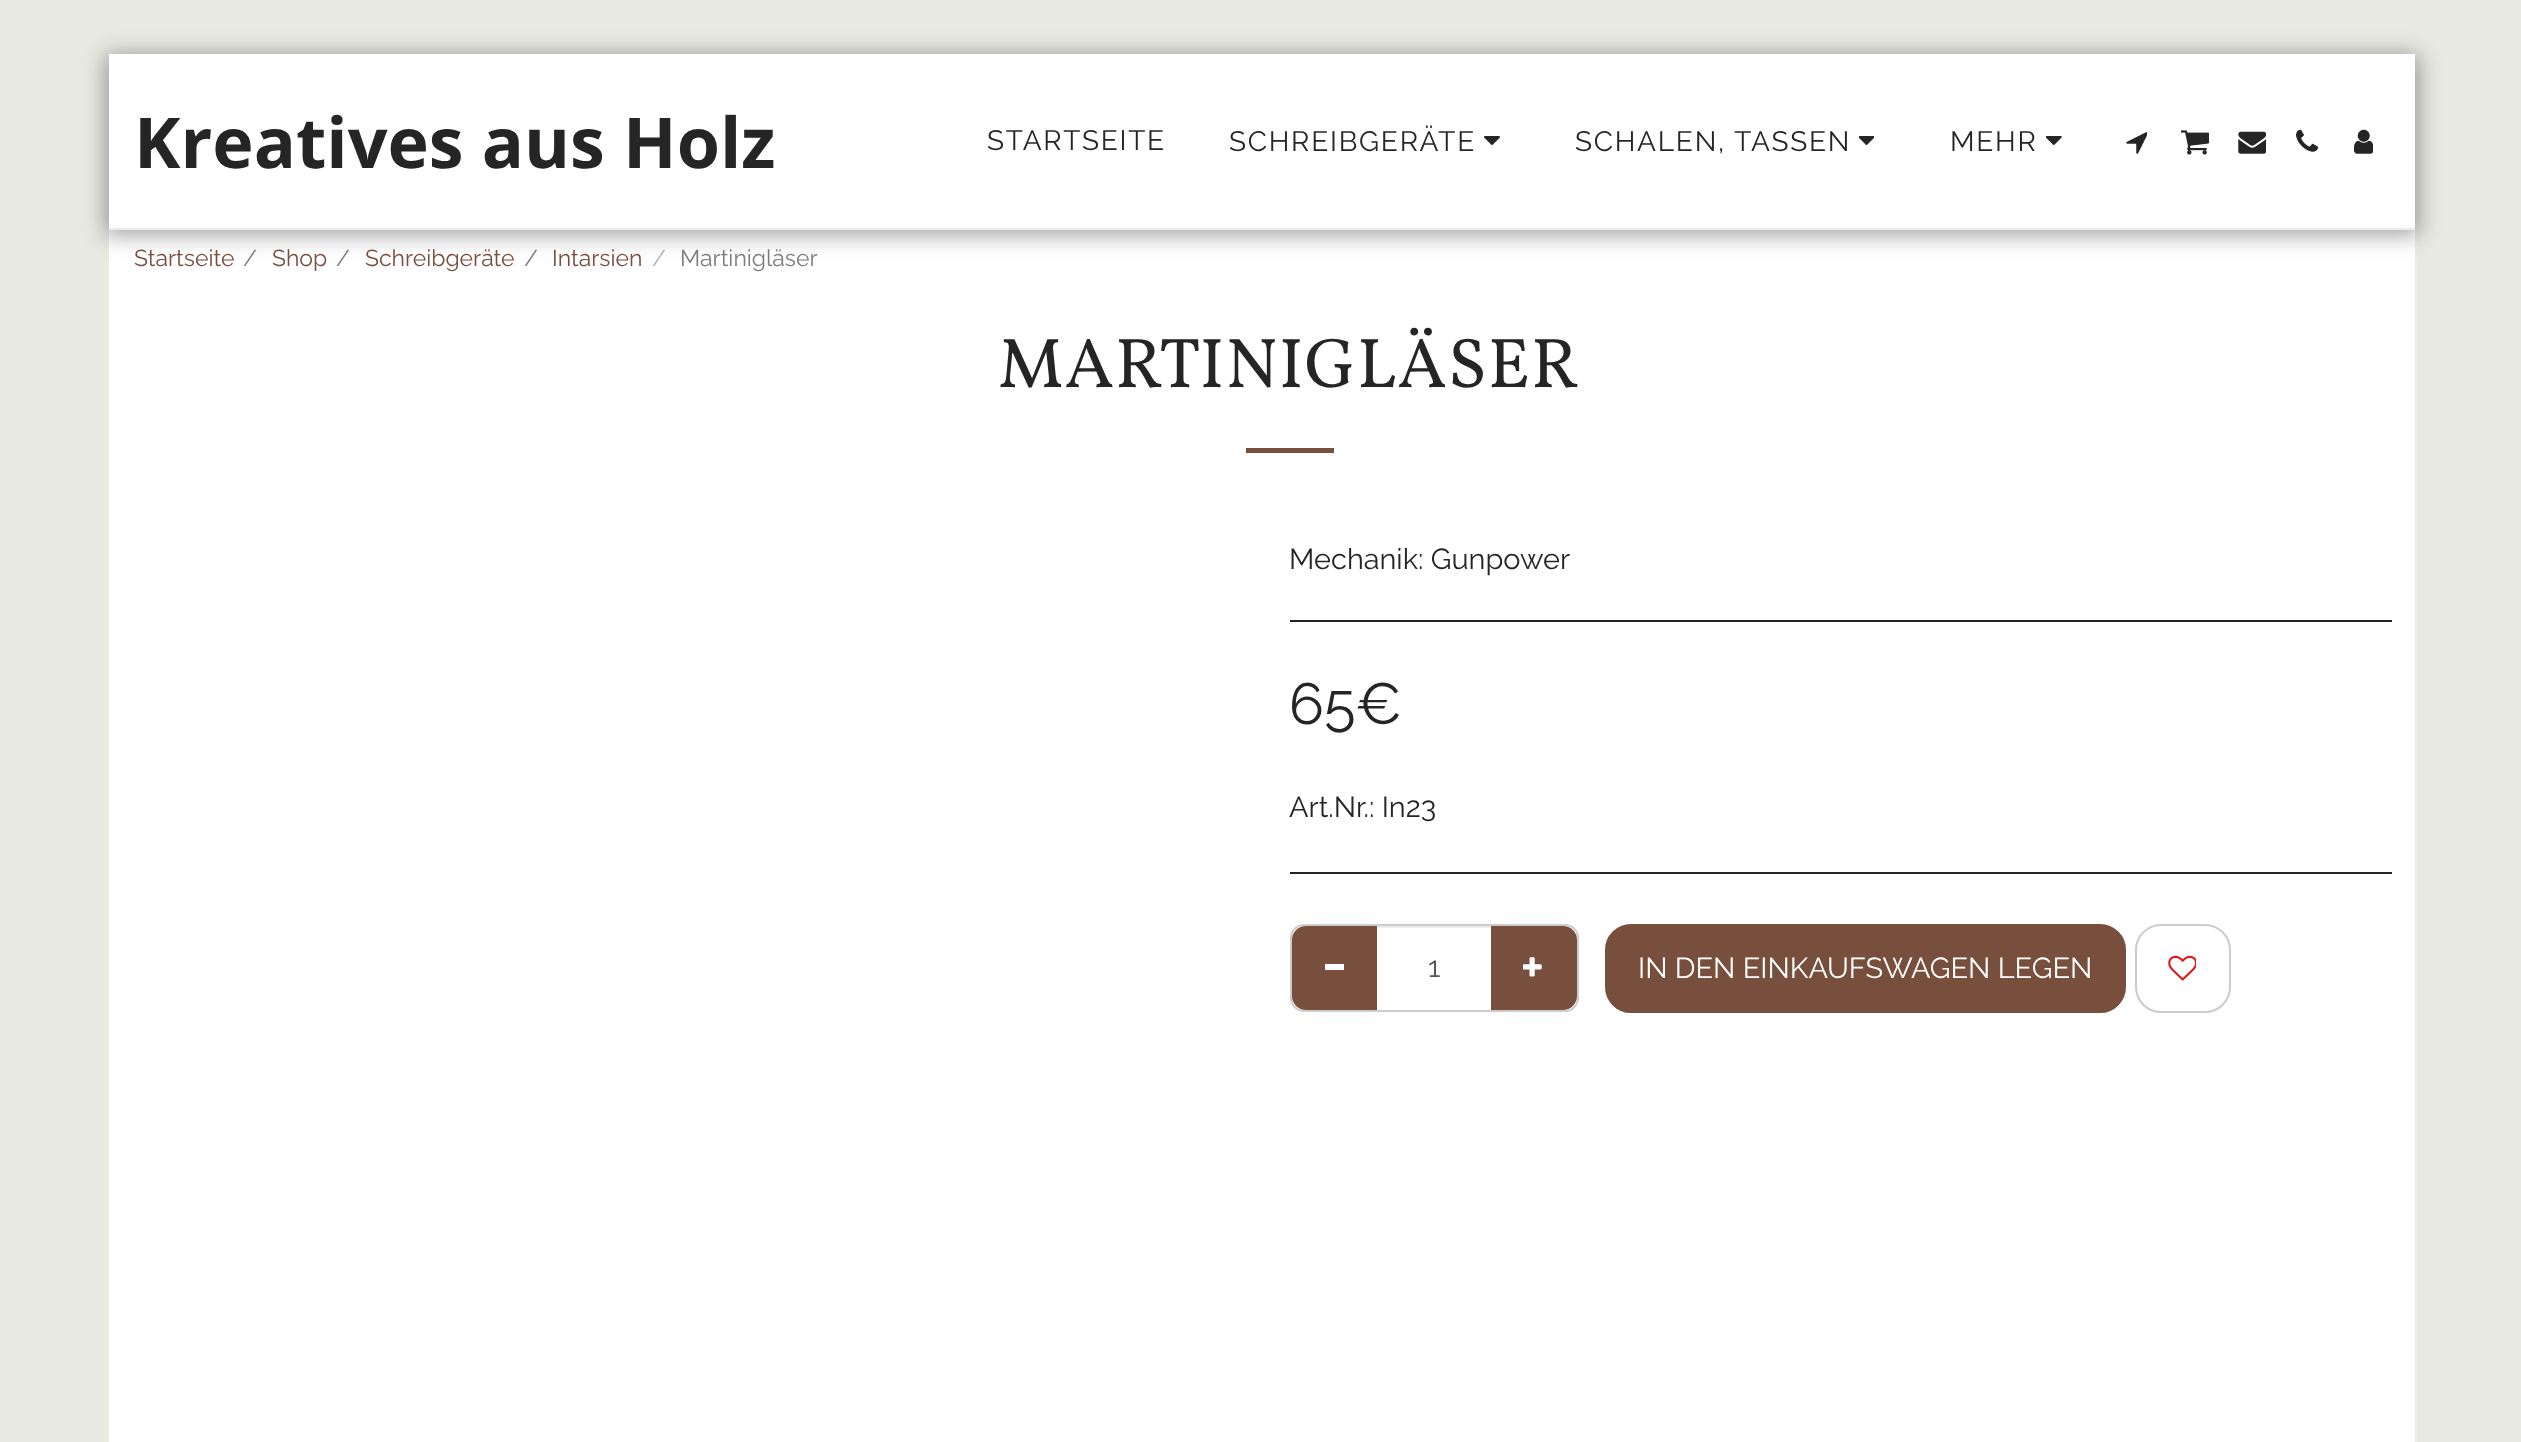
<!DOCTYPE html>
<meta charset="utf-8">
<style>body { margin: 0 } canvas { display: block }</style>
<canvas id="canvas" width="2521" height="1442"></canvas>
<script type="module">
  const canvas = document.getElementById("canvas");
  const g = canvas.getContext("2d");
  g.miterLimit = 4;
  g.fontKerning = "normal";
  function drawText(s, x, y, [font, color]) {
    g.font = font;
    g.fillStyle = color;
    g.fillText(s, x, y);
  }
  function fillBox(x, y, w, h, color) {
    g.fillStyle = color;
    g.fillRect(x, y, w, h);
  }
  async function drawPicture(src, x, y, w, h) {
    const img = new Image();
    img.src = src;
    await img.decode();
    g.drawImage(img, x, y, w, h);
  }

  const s1 = ["bold 70px Open Sans", "#252525"];
  const s2 = ["28px Raleway", "#252525"];
  const s3 = ["23px Raleway", "#784E3D"];
  const s4 = ["23px Raleway", "#7C7C7C"];
  const s5 = ["23px Raleway", "#B1B1B1"];
  const s6 = ["70.5px Vollkorn", "#252525"];
  const s7 = ["28.9px Raleway", "#252525"];
  const s8 = ["58px Raleway", "#252525"];
  const s9 = ["28.9px Raleway", "#555555"];
  const s10 = ["28.9px Raleway", "#FFFFFF"];

  fillBox(0, 0, 2521, 1442, "#E8EAE2");
  g.strokeStyle = "#EBEBEB";
  g.lineWidth = 2;
  g.strokeRect(108, 54, 2308, 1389);
  fillBox(109, 230, 2306, 1212, "#FFFFFF");
  g.fillStyle = "rgba(0, 0, 0, 0.35)";
  g.filter = "blur(10.5px)";
  g.beginPath();
  g.rect(105, 54, 2314, 182);
  g.fill();
  g.filter = "none";
  fillBox(109, 54, 2306, 174, "#FFFFFF");
  fillBox(109, 228, 2306, 2, "#EBEBEB");
  drawText("Kreatives aus Holz", 134, 168, s1);
  g.letterSpacing = "1.75px";
  drawText("STARTSEITE", 987, 150, s2);
  drawText("SCHREIBGERÄTE", 1229, 151, s2);
  await drawPicture("pic1.png", 1484, 136, 16, 9);
  drawText("SCHALEN, TASSEN", 1575, 151, s2);
  await drawPicture("pic2.png", 1859, 136, 15, 9);
  drawText("MEHR", 1950, 151, s2);
  await drawPicture("pic3.png", 2046, 136, 16, 9);
  await drawPicture("pic4.png", 2126, 131, 21, 23);
  await drawPicture("pic5.png", 2181, 130, 28, 25);
  await drawPicture("pic6.png", 2238, 131, 28, 23);
  await drawPicture("pic7.png", 2296, 129, 22, 23);
  await drawPicture("pic8.png", 2354, 129, 19, 25);
  g.letterSpacing = "0px";
  drawText("Startseite", 134, 266, s3);
  drawText("/", 243, 266, s4);
  drawText("Shop", 272, 266, s3);
  drawText("/", 336, 266, s4);
  drawText("Schreibgeräte", 365, 266, s3);
  drawText("/", 524, 266, s4);
  drawText("Intarsien", 552, 266, s3);
  drawText("/", 652, 266, s5);
  drawText("Martinigläser", 680, 266, s4);
  g.letterSpacing = "0.9px";
  drawText("MARTINIGLÄSER", 998, 387, s6);
  fillBox(1246, 448, 88, 5, "#784E3D");
  g.letterSpacing = "0px";
  drawText("Mechanik: Gunpower", 1289, 569, s7);
  fillBox(1290, 620, 1102, 2, "#252525");
  drawText("65€", 1289, 724, s8);
  drawText("Art.Nr.: In23", 1289, 817, s7);
  fillBox(1290, 872, 1102, 2, "#252525");
  g.beginPath();
  g.roundRect(1291, 925, 287, 86, 13);
  g.strokeStyle = "#CCCCCC";
  g.stroke();
  g.fillStyle = "#784E3D";
  g.beginPath();
  g.roundRect(1292, 926, 87, 84, [14, 0, 0, 14]);
  g.fill();
  fillBox(1325, 964, 19, 6, "#FFFFFF");
  g.fillStyle = "#784E3D";
  g.beginPath();
  g.roundRect(1489, 926, 88, 84, [0, 14, 14, 0]);
  g.fill();
  fillBox(1377, 928, 114, 82, "#FFFFFF");
  fillBox(1377, 926, 114, 2, "#ECECEC");
  drawText("1", 1428, 977, s9);
  await drawPicture("pic9.png", 1523, 957, 19, 20);
  g.fillStyle = "#784E3D";
  g.beginPath();
  g.roundRect(1606, 925, 519, 87, 25);
  g.fill();
  g.strokeStyle = "#784E3D";
  g.stroke();
  drawText("IN DEN EINKAUFSWAGEN LEGEN", 1638, 978, s10);
  g.beginPath();
  g.roundRect(2136, 925, 94, 87, 25);
  g.strokeStyle = "#CCCCCC";
  g.stroke();
  await drawPicture("pic10.png", 2168, 955, 28, 26);
</script>
